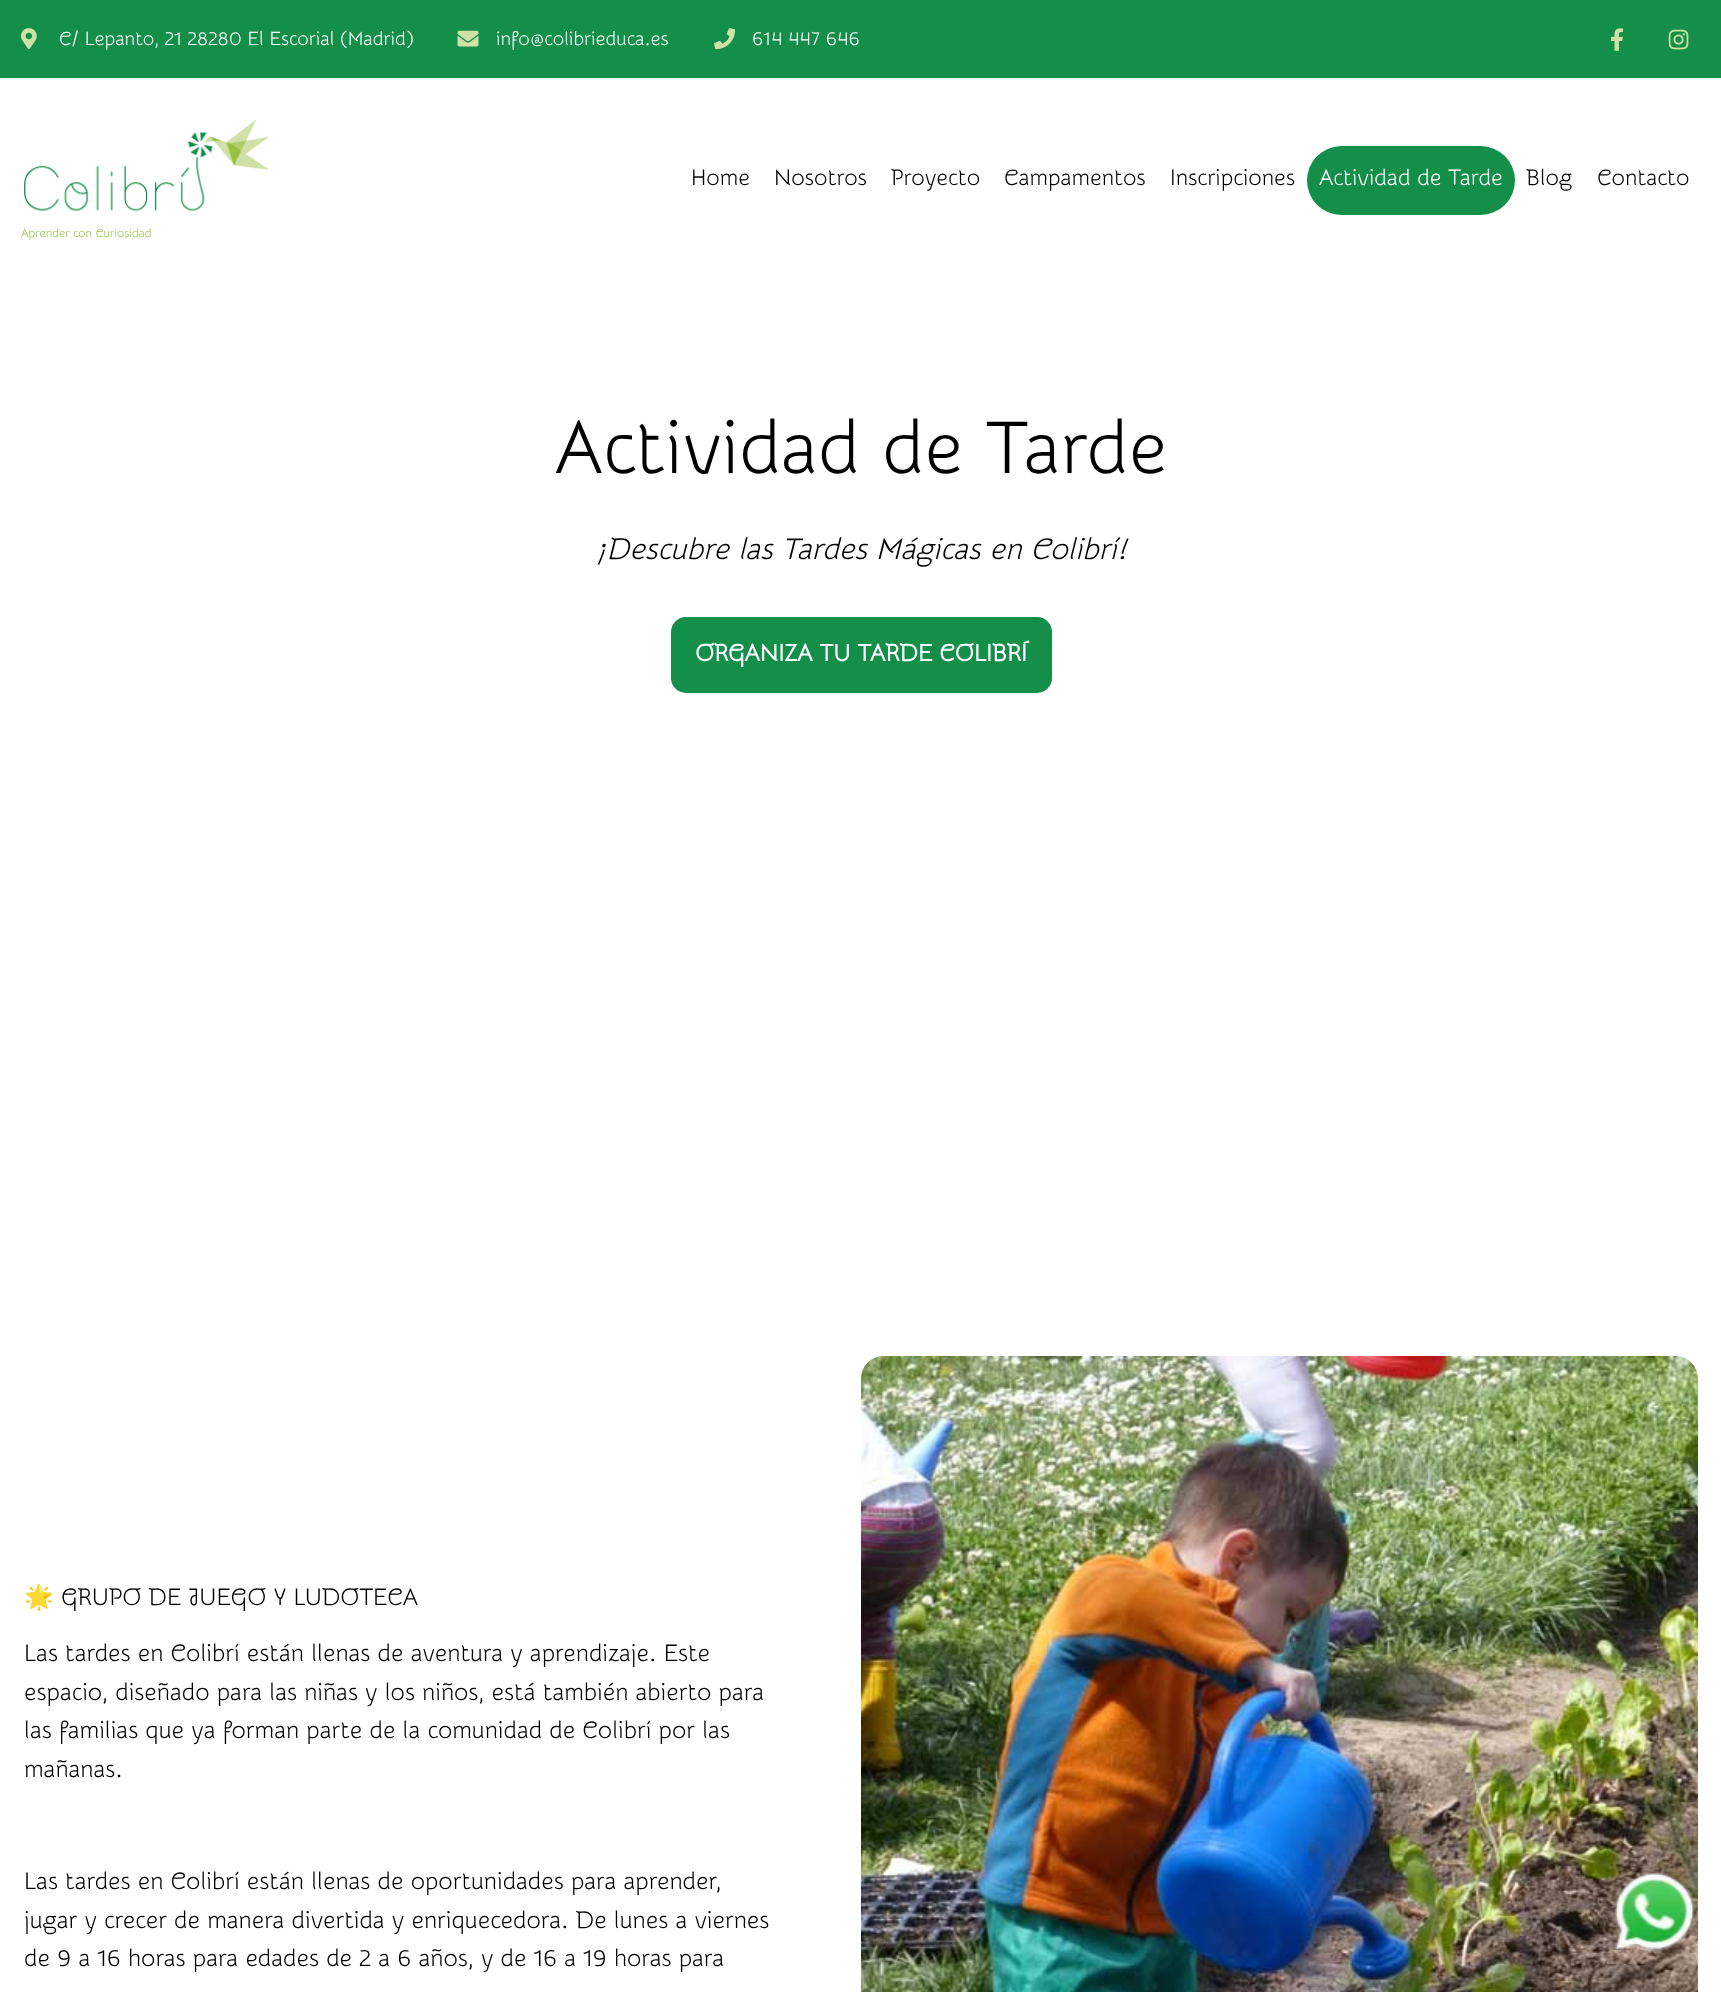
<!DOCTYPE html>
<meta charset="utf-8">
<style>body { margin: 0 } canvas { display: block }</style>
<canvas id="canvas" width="1721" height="1992"></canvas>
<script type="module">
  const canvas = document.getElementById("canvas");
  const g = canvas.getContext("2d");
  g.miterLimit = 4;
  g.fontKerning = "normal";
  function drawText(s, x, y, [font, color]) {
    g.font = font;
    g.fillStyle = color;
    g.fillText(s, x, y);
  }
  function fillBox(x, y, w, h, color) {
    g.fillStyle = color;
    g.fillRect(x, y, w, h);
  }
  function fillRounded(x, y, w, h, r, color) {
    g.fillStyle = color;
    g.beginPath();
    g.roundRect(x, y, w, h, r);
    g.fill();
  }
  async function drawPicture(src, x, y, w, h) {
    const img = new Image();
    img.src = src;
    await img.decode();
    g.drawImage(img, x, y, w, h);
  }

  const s1 = ["19.25px Snippet", "#FFFFFF"];
  const s2 = ["22.5px Snippet", "#000000"];
  const s3 = ["22.5px Snippet", "#FFFFFF"];
  const s4 = ["12px Snippet", "#97C141"];
  const s5 = ["75px Snippet", "#000000"];
  const s6 = ["italic 30px Snippet", "#000000"];
  const s7 = ["bold 24px Snippet", "#FFFFFF"];
  const s8 = ["24px Noto Color Emoji", "#000000"];
  const s9 = ["24px Snippet", "#000000"];

  fillBox(0, 0, 1721, 1992, "#FFFFFF");
  fillBox(0, 0, 1721, 78, "#138F49");
  await drawPicture("pic1.png", 21, 28, 16, 22);
  drawText("C/ Lepanto, 21 28280 El Escorial (Madrid)", 59, 45, s1);
  await drawPicture("pic2.png", 457, 30, 22, 17);
  drawText("info@colibrieduca.es", 496, 45, s1);
  await drawPicture("pic3.png", 714, 28, 21, 22);
  drawText("614 447 646", 752, 45, s1);
  await drawPicture("pic4.png", 1611, 28, 12, 23);
  await drawPicture("pic5.png", 1668, 29, 21, 21);
  drawText("Home", 691, 185, s2);
  drawText("Nosotros", 774, 185, s2);
  drawText("Proyecto", 891, 185, s2);
  drawText("Campamentos", 1004, 185, s2);
  drawText("Inscripciones", 1170, 185, s2);
  fillRounded(1307, 146, 208, 69, 34.5, "#138F49");
  drawText("Actividad de Tarde", 1319, 185, s3);
  drawText("Blog", 1526, 185, s2);
  drawText("Contacto", 1597, 185, s2);
  await drawPicture("pic6.png", 24, 119, 246, 92);
  drawText("Aprender con Curiosidad", 21, 237, s4);
  drawText("Actividad de Tarde", 555, 473, s5);
  drawText("¡Descubre las Tardes Mágicas en Colibrí!", 598, 559, s6);
  fillRounded(671, 617, 381, 76, 15, "#138F49");
  drawText("ORGANIZA TU TARDE COLIBRÍ", 695, 661, s7);
  drawText("🌟", 24, 1605, s8);
  drawText("GRUPO DE JUEGO Y LUDOTECA", 61, 1605, s9);
  drawText("Las tardes en Colibrí están llenas de aventura y aprendizaje. Este", 24, 1661, s9);
  drawText("espacio, diseñado para las niñas y los niños, está también abierto para", 24, 1700, s9);
  drawText("las familias que ya forman parte de la comunidad de Colibrí por las", 24, 1738, s9);
  drawText("mañanas.", 24, 1777, s9);
  drawText("Las tardes en Colibrí están llenas de oportunidades para aprender,", 24, 1889, s9);
  drawText("jugar y crecer de manera divertida y enriquecedora. De lunes a viernes", 24, 1928, s9);
  drawText("de 9 a 16 horas para edades de 2 a 6 años, y de 16 a 19 horas para", 24, 1966, s9);
  await drawPicture("pic7.png", 861, 1356, 837, 636);
  await drawPicture("pic8.png", 1614, 1871, 82, 81);
</script>
